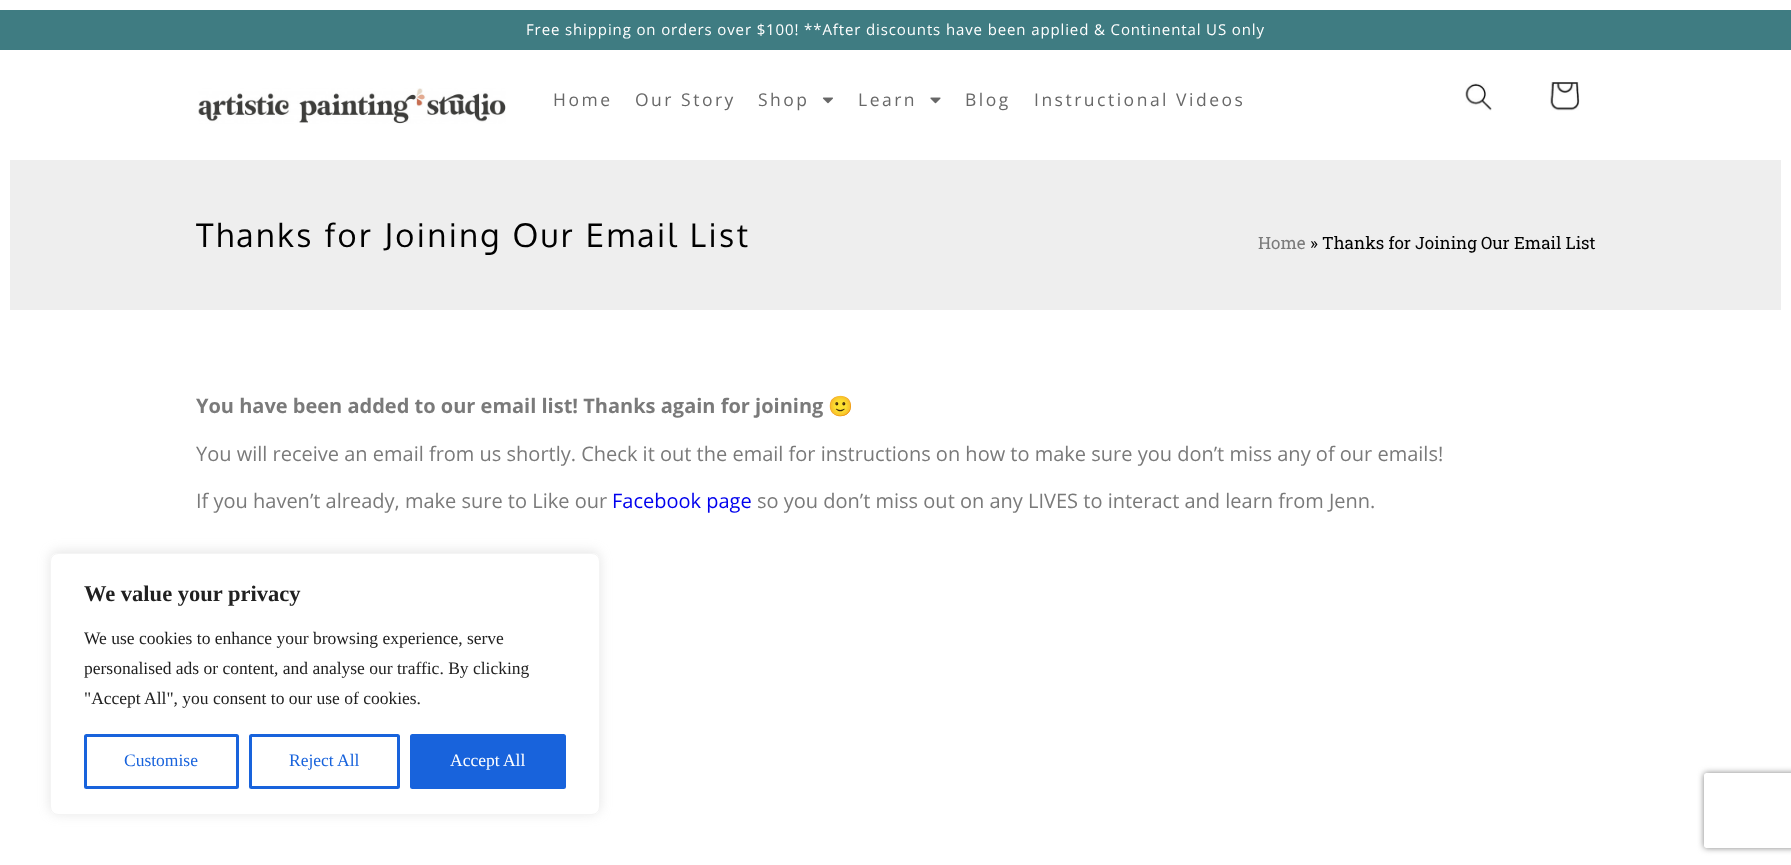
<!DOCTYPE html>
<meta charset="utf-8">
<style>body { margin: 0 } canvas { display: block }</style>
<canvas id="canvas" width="1791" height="865"></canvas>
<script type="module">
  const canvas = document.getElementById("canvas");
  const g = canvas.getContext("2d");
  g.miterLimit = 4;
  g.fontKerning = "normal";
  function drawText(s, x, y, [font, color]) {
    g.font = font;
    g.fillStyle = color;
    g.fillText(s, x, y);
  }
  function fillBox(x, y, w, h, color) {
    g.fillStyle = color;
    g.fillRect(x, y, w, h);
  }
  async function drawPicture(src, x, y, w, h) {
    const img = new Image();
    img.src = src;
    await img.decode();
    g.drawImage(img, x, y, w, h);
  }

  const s1 = ["15px Open Sans", "#FFFFFF"];
  const s2 = ["17.5px Open Sans", "#686868"];
  const s3 = ["32.5px Oxygen", "#000000"];
  const s4 = ["17px Roboto Slab", "#7A7A7A"];
  const s5 = ["17px Roboto Slab", "#000000"];
  const s6 = ["bold 20px Open Sans", "#7A7A7A"];
  const s7 = ["bold 20px Noto Color Emoji", "#7A7A7A"];
  const s8 = ["20px Open Sans", "#7A7A7A"];
  const s9 = ["20px Open Sans", "#0000EE"];
  const s10 = ["bold 22.5px Liberation Serif", "#212121"];
  const s11 = ["17.5px Liberation Serif", "#212121"];
  const s12 = ["17.5px Liberation Serif", "#1863DC"];
  const s13 = ["17.5px Liberation Serif", "#FFFFFF"];

  fillBox(0, 0, 1791, 865, "#FFFFFF");
  fillBox(0, 10, 1791, 40, "#3F7C82");
  g.letterSpacing = "0.88px";
  drawText("Free shipping on orders over $100! **After discounts have been applied & Continental US only", 526, 35, s1);
  await drawPicture("pic1.png", 198, 88, 308, 36);
  g.letterSpacing = "2.5px";
  drawText("Home", 553, 106, s2);
  drawText("Our Story", 635, 106, s2);
  drawText("Shop", 758, 106, s2);
  await drawPicture("pic2.png", 822, 97, 11, 7);
  drawText("Learn", 858, 106, s2);
  await drawPicture("pic3.png", 930, 97, 11, 7);
  drawText("Blog", 965, 106, s2);
  drawText("Instructional Videos", 1034, 106, s2);
  await drawPicture("pic4.png", 1465, 83, 27, 28);
  await drawPicture("pic5.png", 1550, 82, 30, 29);
  fillBox(10, 160, 1771, 150, "#EEEEEE");
  drawText("Thanks for Joining Our Email List", 196, 247, s3);
  g.letterSpacing = "0px";
  drawText("Home", 1258, 249, s4);
  drawText("» Thanks for Joining Our Email List", 1310, 249, s5);
  drawText("You have been added to our email list! Thanks again for joining", 196, 413, s6);
  drawText("🙂", 828, 413, s7);
  drawText("You will receive an email from us shortly. Check it out the email for instructions on how to make sure you don’t miss any of our emails!", 196, 461, s8);
  drawText("If you haven’t already, make sure to Like our", 196, 508, s8);
  drawText("Facebook page", 612, 508, s9);
  drawText("so you don’t miss out on any LIVES to interact and learn from Jenn.", 757, 508, s8);
  g.save();
  g.beginPath();
  g.moveTo(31, 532);
  g.lineTo(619, 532);
  g.lineTo(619, 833);
  g.lineTo(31, 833);
  g.closePath();
  g.moveTo(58, 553);
  g.lineTo(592, 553);
  g.bezierCurveTo(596.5, 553, 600, 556.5, 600, 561);
  g.lineTo(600, 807);
  g.bezierCurveTo(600, 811.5, 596.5, 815, 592, 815);
  g.lineTo(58, 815);
  g.bezierCurveTo(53.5, 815, 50, 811.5, 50, 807);
  g.lineTo(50, 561);
  g.bezierCurveTo(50, 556.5, 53.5, 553, 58, 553);
  g.closePath();
  g.clip("evenodd");
  g.fillStyle = "rgba(172, 171, 171, 0.3)";
  g.filter = "blur(6px)";
  g.beginPath();
  g.roundRect(50, 551, 550, 263, 8);
  g.fill();
  g.filter = "none";
  g.restore();
  g.beginPath();
  g.roundRect(50.5, 553.5, 549, 261, 7.5);
  g.strokeStyle = "#F4F4F4";
  g.stroke();
  drawText("We value your privacy", 84, 601, s10);
  drawText("We use cookies to enhance your browsing experience, serve", 84, 644, s11);
  drawText("personalised ads or content, and analyse our traffic. By clicking", 84, 674, s11);
  drawText("\"Accept All\", you consent to our use of cookies.", 84, 704, s11);
  g.beginPath();
  g.roundRect(85.5, 735.5, 152, 52, 1);
  g.strokeStyle = "#1863DC";
  g.lineWidth = 3;
  g.stroke();
  drawText("Customise", 124, 766, s12);
  g.beginPath();
  g.roundRect(250.5, 735.5, 148, 52, 1);
  g.stroke();
  drawText("Reject All", 289, 766, s12);
  g.beginPath();
  g.roundRect(411.5, 735.5, 153, 52, 1);
  g.fill();
  g.stroke();
  drawText("Accept All", 450, 766, s13);
  g.save();
  g.beginPath();
  g.moveTo(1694, 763);
  g.lineTo(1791, 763);
  g.lineTo(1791, 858);
  g.lineTo(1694, 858);
  g.closePath();
  g.moveTo(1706.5, 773);
  g.lineTo(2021.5, 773);
  g.bezierCurveTo(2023, 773, 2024, 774, 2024, 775.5);
  g.lineTo(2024, 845.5);
  g.bezierCurveTo(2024, 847, 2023, 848, 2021.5, 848);
  g.lineTo(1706.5, 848);
  g.bezierCurveTo(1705, 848, 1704, 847, 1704, 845.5);
  g.lineTo(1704, 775.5);
  g.bezierCurveTo(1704, 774, 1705, 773, 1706.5, 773);
  g.closePath();
  g.clip("evenodd");
  g.fillStyle = "#808080";
  g.filter = "blur(3px)";
  g.beginPath();
  g.roundRect(1704, 773, 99, 75, 2.5);
  g.fill();
  g.filter = "none";
  g.restore();
</script>
